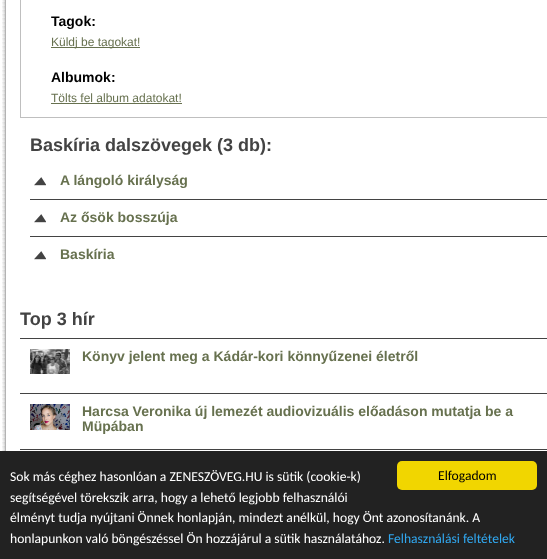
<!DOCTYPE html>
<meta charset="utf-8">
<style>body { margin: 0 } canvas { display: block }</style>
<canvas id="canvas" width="547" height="559"></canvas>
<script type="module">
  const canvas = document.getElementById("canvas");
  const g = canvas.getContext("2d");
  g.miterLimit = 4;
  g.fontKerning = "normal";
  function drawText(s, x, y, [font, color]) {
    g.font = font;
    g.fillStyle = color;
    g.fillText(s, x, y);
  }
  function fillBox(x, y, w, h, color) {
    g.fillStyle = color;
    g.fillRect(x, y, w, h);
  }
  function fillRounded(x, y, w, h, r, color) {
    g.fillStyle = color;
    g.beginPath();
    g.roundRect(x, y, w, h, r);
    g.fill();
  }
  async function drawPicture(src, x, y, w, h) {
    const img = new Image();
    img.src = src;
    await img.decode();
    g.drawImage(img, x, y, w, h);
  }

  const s1 = ["bold 14px Liberation Sans", "#000000"];
  const s2 = ["12px Liberation Sans", "#67714F"];
  const s3 = ["bold 18px Liberation Sans", "#434343"];
  const s4 = ["bold 14px Liberation Sans", "#67714F"];
  const s5 = ["13.6px Carlito", "#FFFFFF"];
  const s6 = ["13.6px Carlito", "#31A8F0"];
  const s7 = ["13.6px Carlito", "#000000"];

  fillBox(0, 0, 547, 559, "#FFFFFF");
  await drawPicture("pic1.png", 2, 0, 4, 451);
  g.strokeStyle = "#BFBFBF";
  g.strokeRect(20.5, -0.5, 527, 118);
  drawText("Tagok:", 51, 26, s1);
  fillBox(51, 47, 89, 1, "#67714F");
  drawText("Küldj be tagokat!", 51, 46, s2);
  drawText("Albumok:", 51, 82, s1);
  drawText("Tölts fel album adatokat!", 51, 102, s2);
  fillBox(51, 103, 131, 1, "#67714F");
  drawText("Baskíria dalszövegek (3 db):", 30, 151, s3);
  await drawPicture("pic2.png", 34, 177, 12, 9);
  drawText("A lángoló királyság", 60, 185, s4);
  fillBox(30, 199, 517, 1, "#434343");
  await drawPicture("pic2.png", 34, 214, 12, 9);
  drawText("Az ősök bosszúja", 60, 222, s4);
  fillBox(30, 236, 517, 1, "#434343");
  await drawPicture("pic2.png", 34, 251, 12, 9);
  drawText("Baskíria", 60, 259, s4);
  drawText("Top 3 hír", 20, 325, s3);
  fillBox(20, 338, 527, 1, "#434343");
  await drawPicture("pic3.png", 30, 349, 40, 25);
  drawText("Könyv jelent meg a Kádár-kori könnyűzenei életről", 82, 361, s4);
  fillBox(20, 393, 527, 1, "#434343");
  await drawPicture("pic4.png", 30, 404, 40, 26);
  drawText("Harcsa Veronika új lemezét audiovizuális előadáson mutatja be a", 82, 416, s4);
  drawText("Müpában", 82, 431, s4);
  fillBox(20, 449, 527, 1, "#434343");
  fillBox(0, 451, 547, 108, "#222222");
  drawText("Sok más céghez hasonlóan a ZENESZÖVEG.HU is sütik (cookie-k)", 10, 481, s5);
  drawText("segítségével törekszik arra, hogy a lehető legjobb felhasználói", 10, 502, s5);
  drawText("élményt tudja nyújtani Önnek honlapján, mindezt anélkül, hogy Önt azonosítanánk. A", 10, 522, s5);
  drawText("honlapunkon való böngészéssel Ön hozzájárul a sütik használatához.", 10, 543, s5);
  drawText("Felhasználási feltételek", 388, 543, s6);
  fillRounded(397, 461, 140, 29, 5, "#F1D600");
  drawText("Elfogadom", 438, 480, s7);
</script>
